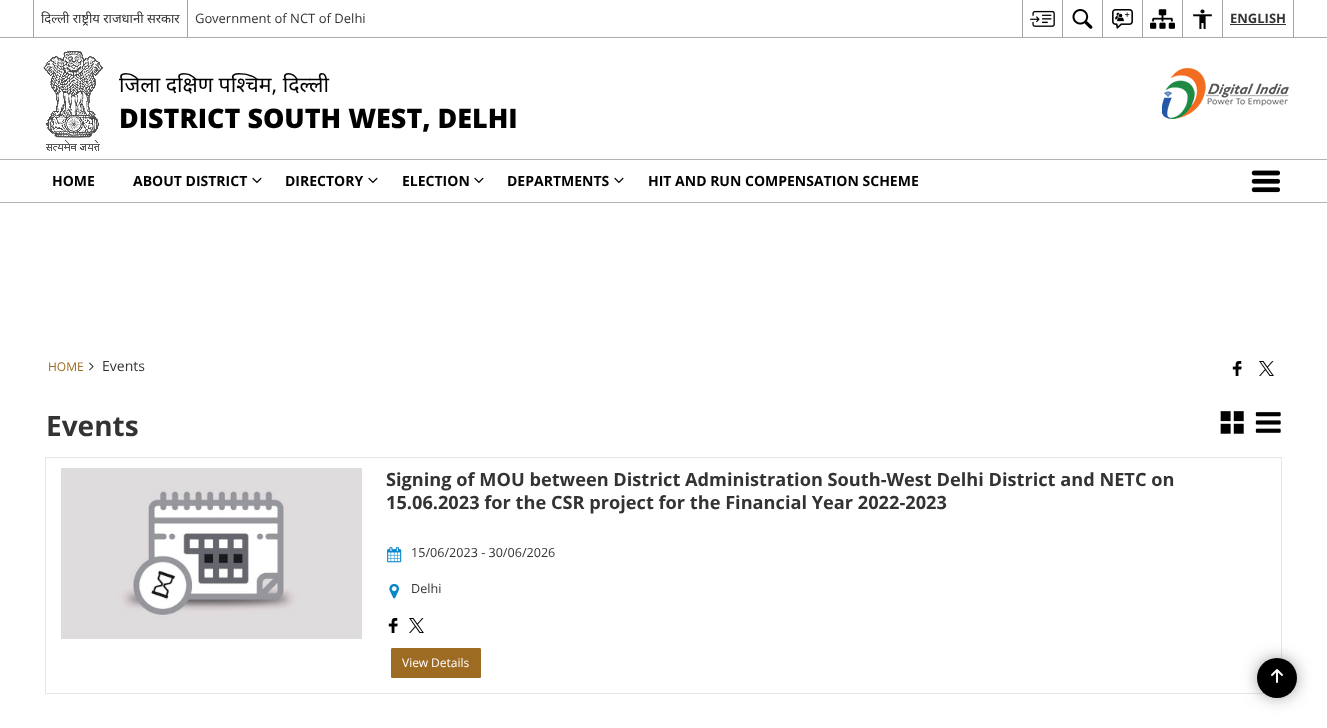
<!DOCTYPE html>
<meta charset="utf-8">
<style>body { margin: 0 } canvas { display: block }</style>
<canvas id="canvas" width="1327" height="728"></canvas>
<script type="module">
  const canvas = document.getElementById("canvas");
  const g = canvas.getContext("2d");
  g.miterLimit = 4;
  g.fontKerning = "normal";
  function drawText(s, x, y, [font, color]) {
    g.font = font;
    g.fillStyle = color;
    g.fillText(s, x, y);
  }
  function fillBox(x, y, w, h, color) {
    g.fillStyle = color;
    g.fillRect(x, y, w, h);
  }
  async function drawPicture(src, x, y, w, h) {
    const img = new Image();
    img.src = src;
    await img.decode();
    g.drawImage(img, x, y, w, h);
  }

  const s1 = ["13px Noto Sans", "#333333"];
  const s2 = ["13px Open Sans", "#333333"];
  const s3 = ["bold 13px Open Sans", "#333333"];
  const s4 = ["21.25px Noto Sans", "#000000"];
  const s5 = ["800 26.9px Open Sans", "#000000"];
  const s6 = ["bold 14px Open Sans", "#000000"];
  const s7 = ["12px Open Sans", "#9E6B22"];
  const s8 = ["14px Open Sans", "#333333"];
  const s9 = ["bold 28px Open Sans", "#333333"];
  const s10 = ["bold 18.2px Open Sans", "#333333"];
  const s11 = ["12.6px Open Sans", "#333333"];
  const s12 = ["12px Open Sans", "#FFFFFF"];

  fillBox(0, 0, 1327, 728, "#FFFFFF");
  fillBox(0, 37, 1327, 1, "#ABABAB");
  fillBox(33, 0, 1, 37, "#A3A3A3");
  drawText("दिल्ली राष्ट्रीय राजधानी सरकार", 41, 23, s1);
  fillBox(187, 0, 1, 37, "#A3A3A3");
  drawText("Government of NCT of Delhi", 195, 23, s2);
  fillBox(1022, 0, 1, 37, "#A3A3A3");
  await drawPicture("pic1.png", 1030, 10, 25, 17);
  fillBox(1062, 0, 1, 37, "#A3A3A3");
  await drawPicture("pic2.png", 1072, 9, 21, 20);
  fillBox(1102, 0, 1, 37, "#A3A3A3");
  await drawPicture("pic3.png", 1112, 9, 21, 20);
  fillBox(1142, 0, 1, 37, "#A3A3A3");
  await drawPicture("pic4.png", 1150, 9, 25, 20);
  fillBox(1182, 0, 1, 37, "#A3A3A3");
  await drawPicture("pic5.png", 1193, 9, 19, 20);
  fillBox(1293, 0, 1, 37, "#A3A3A3");
  fillBox(1222, 0, 1, 37, "#A3A3A3");
  drawText("ENGLISH", 1230, 23, s3);
  fillBox(1230, 24, 56, 1, "#333333");
  await drawPicture("pic6.png", 43, 51, 60, 100);
  drawText("जिला दक्षिण पश्चिम, दिल्ली", 119, 92, s4);
  drawText("DISTRICT SOUTH WEST, DELHI", 119, 128, s5);
  await drawPicture("pic7.png", 1162, 68, 127, 51);
  fillBox(0, 159, 1327, 1, "#B3B3B3");
  fillBox(0, 202, 1327, 1, "#B3B3B3");
  drawText("HOME", 52, 186, s6);
  drawText("ABOUT DISTRICT", 133, 186, s6);
  await drawPicture("pic8.png", 252, 177, 10, 7);
  drawText("DIRECTORY", 285, 186, s6);
  await drawPicture("pic8.png", 368, 177, 10, 7);
  drawText("ELECTION", 402, 186, s6);
  await drawPicture("pic8.png", 474, 177, 10, 7);
  drawText("DEPARTMENTS", 507, 186, s6);
  await drawPicture("pic8.png", 614, 177, 10, 7);
  drawText("HIT AND RUN COMPENSATION SCHEME", 648, 186, s6);
  await drawPicture("pic9.png", 1251, 170, 30, 23);
  drawText("HOME", 48, 371, s7);
  await drawPicture("pic10.png", 89, 362, 5, 9);
  drawText("Events", 102, 371, s8);
  await drawPicture("pic11.png", 1232, 361, 10, 15);
  await drawPicture("pic12.png", 1259, 361, 15, 15);
  drawText("Events", 46, 436, s9);
  await drawPicture("pic13.png", 1220, 411, 24, 23);
  await drawPicture("pic14.png", 1255, 412, 26, 21);
  g.strokeStyle = "#E6E6E6";
  g.strokeRect(45.5, 457.5, 1236, 236);
  await drawPicture("pic15.png", 61, 468, 301, 171);
  drawText("Signing of MOU between District Administration South-West Delhi District and NETC on", 386, 486, s10);
  drawText("15.06.2023 for the CSR project for the Financial Year 2022-2023", 386, 509, s10);
  await drawPicture("pic16.png", 387, 547, 15, 16);
  drawText("15/06/2023 - 30/06/2026", 411, 557, s11);
  await drawPicture("pic17.png", 389, 583, 10, 16);
  drawText("Delhi", 411, 593, s11);
  await drawPicture("pic11.png", 388, 618, 10, 15);
  await drawPicture("pic12.png", 409, 618, 15, 15);
  g.fillStyle = "#9E6B22";
  g.beginPath();
  g.roundRect(391.5, 648.5, 89, 29, 0.5);
  g.fill();
  g.strokeStyle = "#9E6B22";
  g.stroke();
  drawText("View Details", 402, 667, s12);
  g.fillStyle = "#3C3C3C";
  g.filter = "blur(9.5px)";
  g.beginPath();
  g.roundRect(1262, 663, 30, 30, 15);
  g.fill();
  g.filter = "none";
  g.fillStyle = "#000000";
  g.beginPath();
  g.arc(1277, 678, 20, 0, Math.PI * 2);
  g.fill();
  await drawPicture("pic18.png", 1271, 669, 12, 14);
</script>
